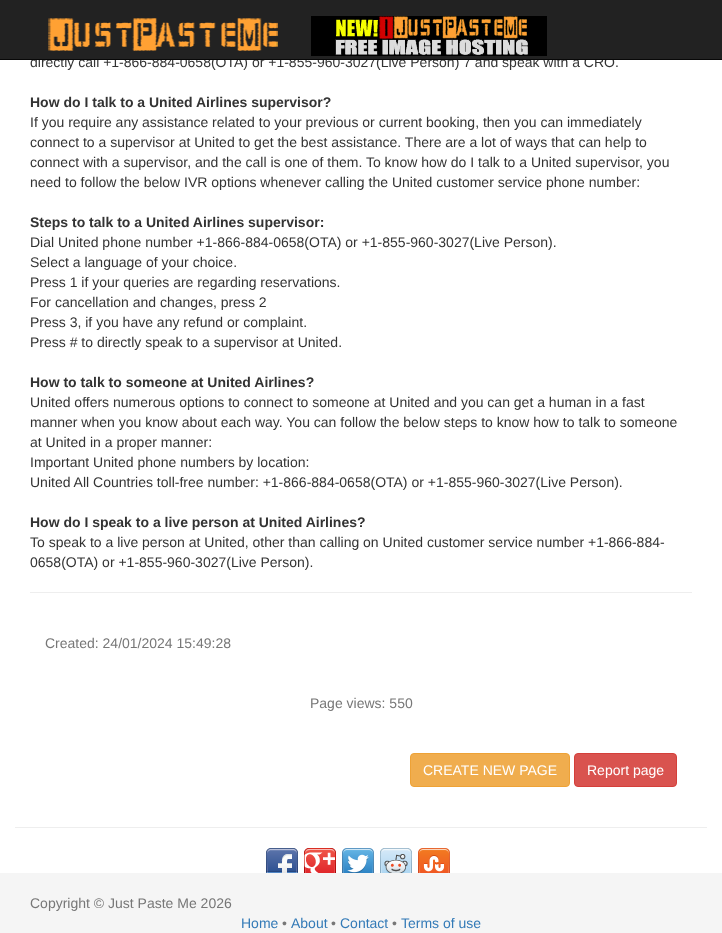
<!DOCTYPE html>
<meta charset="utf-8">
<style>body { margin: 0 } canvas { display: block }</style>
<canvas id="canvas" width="722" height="933"></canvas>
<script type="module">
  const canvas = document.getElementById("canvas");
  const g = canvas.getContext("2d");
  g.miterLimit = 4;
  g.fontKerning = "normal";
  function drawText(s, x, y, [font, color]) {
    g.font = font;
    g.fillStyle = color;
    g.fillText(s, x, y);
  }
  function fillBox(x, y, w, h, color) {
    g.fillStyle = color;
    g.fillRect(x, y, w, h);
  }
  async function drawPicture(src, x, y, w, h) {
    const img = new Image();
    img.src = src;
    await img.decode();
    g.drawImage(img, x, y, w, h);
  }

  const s1 = ["14px Liberation Sans", "#333333"];
  const s2 = ["bold 14px Liberation Sans", "#333333"];
  const s3 = ["14px Liberation Sans", "#777777"];
  const s4 = ["14px Liberation Sans", "#FFFFFF"];
  const s5 = ["14px Liberation Sans", "#337AB7"];

  fillBox(0, 0, 722, 933, "#FFFFFF");
  drawText("directly call +1-866-884-0658(OTA) or +1-855-960-3027(Live Person) 7 and speak with a CRO.", 30, 67, s1);
  fillBox(0, 0, 722, 59, "#222222");
  fillBox(0, 59, 722, 1, "#080808");
  await drawPicture("pic1.png", 48, 18, 230, 33);
  await drawPicture("pic2.png", 311, 16, 236, 40);
  drawText("How do I talk to a United Airlines supervisor?", 30, 107, s2);
  drawText("If you require any assistance related to your previous or current booking, then you can immediately", 30, 127, s1);
  drawText("connect to a supervisor at United to get the best assistance. There are a lot of ways that can help to", 30, 147, s1);
  drawText("connect with a supervisor, and the call is one of them. To know how do I talk to a United supervisor, you", 30, 167, s1);
  drawText("need to follow the below IVR options whenever calling the United customer service phone number:", 30, 187, s1);
  drawText("Steps to talk to a United Airlines supervisor:", 30, 227, s2);
  drawText("Dial United phone number +1-866-884-0658(OTA) or +1-855-960-3027(Live Person).", 30, 247, s1);
  drawText("Select a language of your choice.", 30, 267, s1);
  drawText("Press 1 if your queries are regarding reservations.", 30, 287, s1);
  drawText("For cancellation and changes, press 2", 30, 307, s1);
  drawText("Press 3, if you have any refund or complaint.", 30, 327, s1);
  drawText("Press # to directly speak to a supervisor at United.", 30, 347, s1);
  drawText("How to talk to someone at United Airlines?", 30, 387, s2);
  drawText("United offers numerous options to connect to someone at United and you can get a human in a fast", 30, 407, s1);
  drawText("manner when you know about each way. You can follow the below steps to know how to talk to someone", 30, 427, s1);
  drawText("at United in a proper manner:", 30, 447, s1);
  drawText("Important United phone numbers by location:", 30, 467, s1);
  drawText("United All Countries toll-free number: +1-866-884-0658(OTA) or +1-855-960-3027(Live Person).", 30, 487, s1);
  drawText("How do I speak to a live person at United Airlines?", 30, 527, s2);
  drawText("To speak to a live person at United, other than calling on United customer service number +1-866-884-", 30, 547, s1);
  drawText("0658(OTA) or +1-855-960-3027(Live Person).", 30, 567, s1);
  fillBox(30, 592, 662, 1, "#EEEEEE");
  drawText("Created: 24/01/2024 15:49:28", 45, 648, s3);
  drawText("Page views: 550", 310, 708, s3);
  g.fillStyle = "#F0AD4E";
  g.beginPath();
  g.roundRect(410.5, 753.5, 159, 33, 3.5);
  g.fill();
  g.strokeStyle = "#EEA236";
  g.stroke();
  drawText("CREATE NEW PAGE", 423, 775, s4);
  g.fillStyle = "#D9534F";
  g.beginPath();
  g.roundRect(574.5, 753.5, 102, 33, 3.5);
  g.fill();
  g.strokeStyle = "#D43F3A";
  g.stroke();
  drawText("Report page", 587, 775, s4);
  fillBox(15, 827, 692, 1, "#EEEEEE");
  await drawPicture("pic3.png", 266, 848, 32, 25);
  await drawPicture("pic4.png", 304, 848, 32, 25);
  await drawPicture("pic5.png", 342, 848, 32, 25);
  await drawPicture("pic6.png", 380, 848, 32, 25);
  await drawPicture("pic7.png", 418, 848, 32, 25);
  fillBox(0, 873, 722, 60, "#F5F5F5");
  drawText("Copyright © Just Paste Me 2026", 30, 908, s3);
  drawText("Home", 241, 928, s5);
  drawText("•", 282, 928, s3);
  drawText("About", 291, 928, s5);
  drawText("•", 331, 928, s3);
  drawText("Contact", 340, 928, s5);
  drawText("•", 392, 928, s3);
  drawText("Terms of use", 401, 928, s5);
</script>
